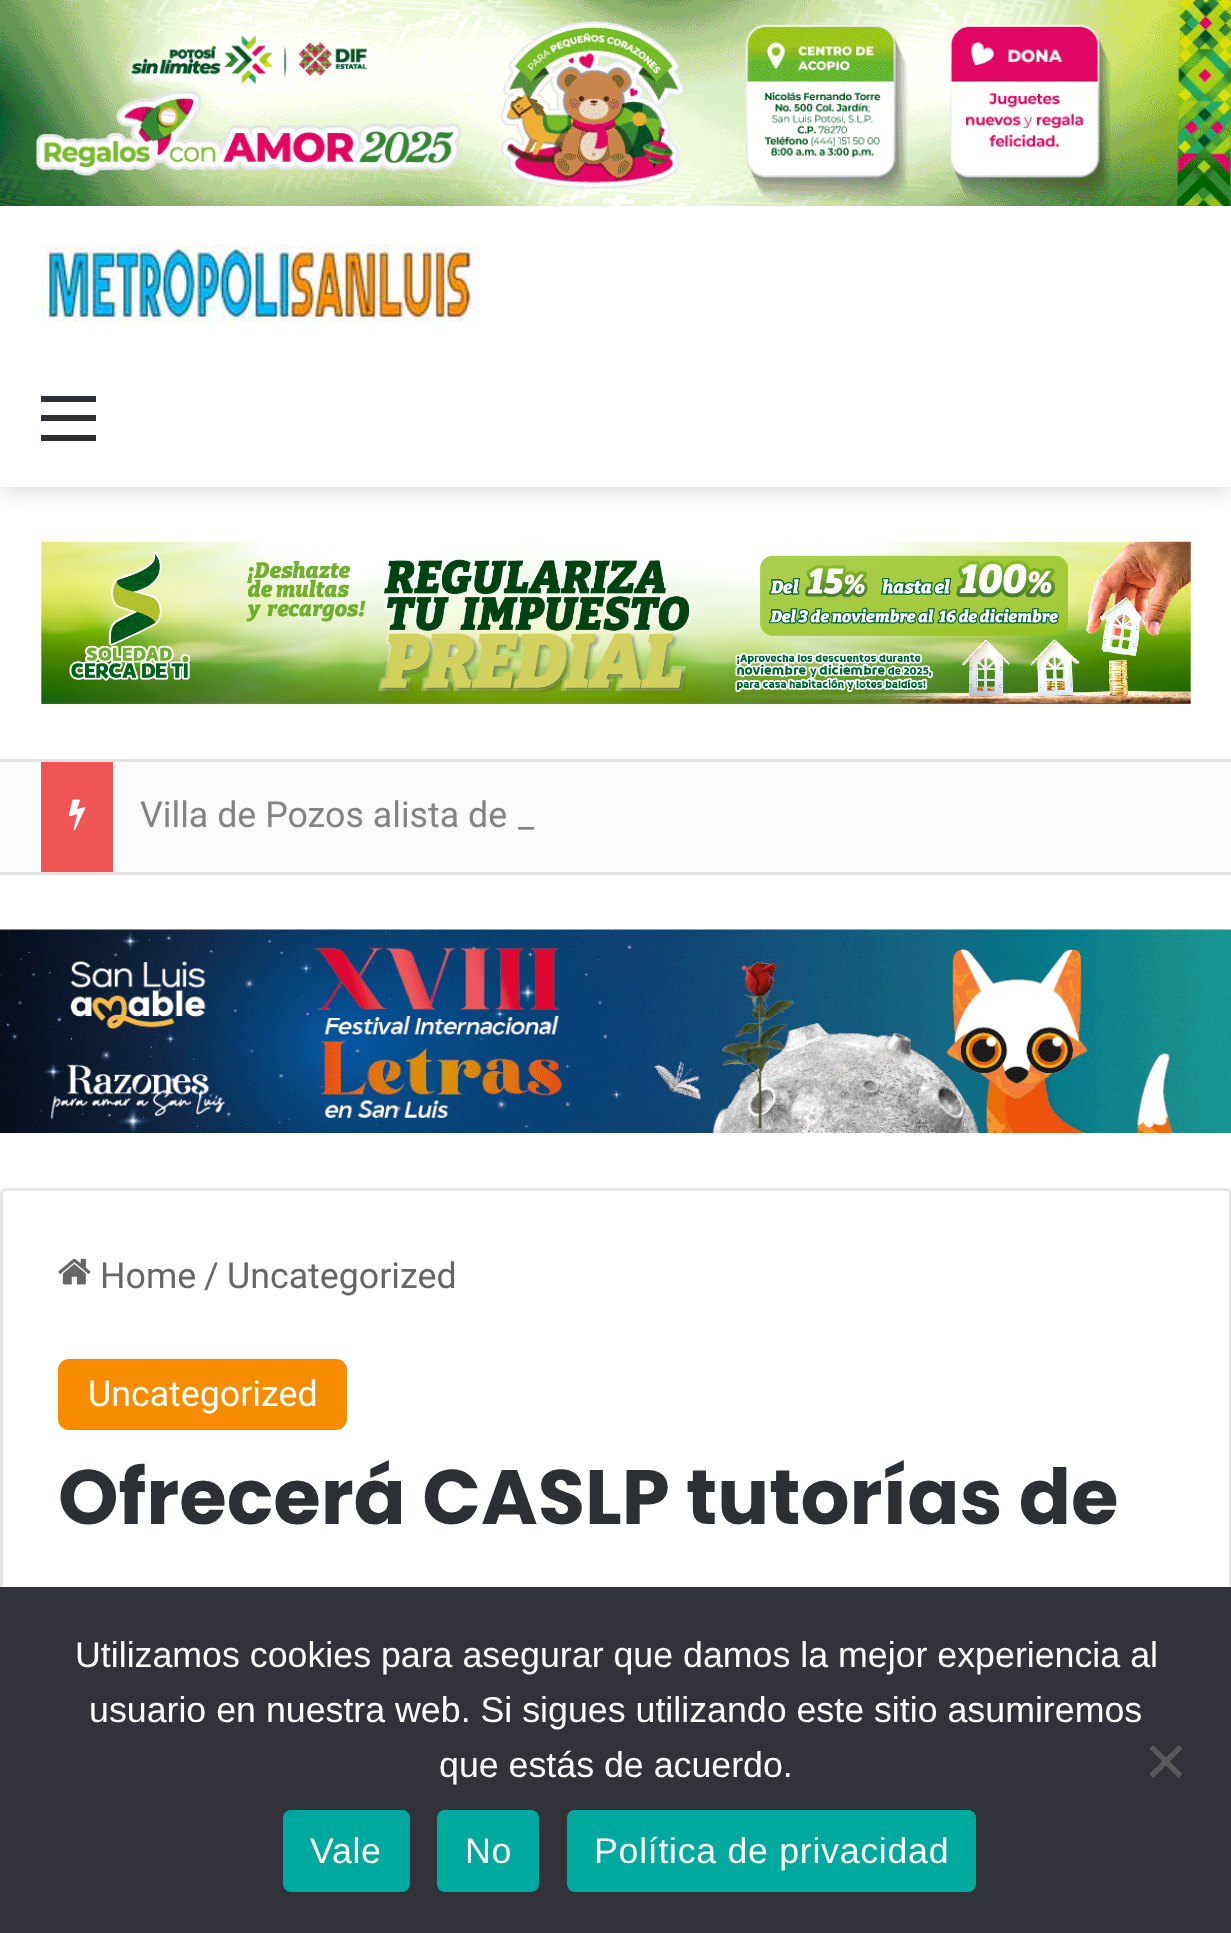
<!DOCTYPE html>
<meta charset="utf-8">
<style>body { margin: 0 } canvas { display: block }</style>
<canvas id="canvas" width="1231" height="1933"></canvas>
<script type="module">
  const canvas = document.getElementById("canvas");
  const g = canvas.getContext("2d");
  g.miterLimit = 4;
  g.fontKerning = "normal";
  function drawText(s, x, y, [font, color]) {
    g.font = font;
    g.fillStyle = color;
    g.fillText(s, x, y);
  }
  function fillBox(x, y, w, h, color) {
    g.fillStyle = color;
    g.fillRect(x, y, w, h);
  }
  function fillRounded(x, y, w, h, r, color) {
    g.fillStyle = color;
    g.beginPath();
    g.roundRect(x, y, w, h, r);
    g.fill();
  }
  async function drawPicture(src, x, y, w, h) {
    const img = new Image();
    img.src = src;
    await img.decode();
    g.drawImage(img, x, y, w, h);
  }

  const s1 = ["35.75px Roboto", "#838383"];
  const s2 = ["35.75px Roboto", "#666666"];
  const s3 = ["35.75px Roboto", "#FFFFFF"];
  const s4 = ["bold 77px Poppins", "#2C2F34"];
  const s5 = ["35.75px Liberation Sans", "#FFFFFF"];

  fillBox(0, 0, 1231, 1933, "#FFFFFF");
  await drawPicture("pic1.png", 0, 0, 1231, 206);
  g.fillStyle = "rgba(0, 0, 0, 0.1)";
  g.filter = "blur(9.5px)";
  g.beginPath();
  g.rect(0, 215, 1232, 280);
  g.fill();
  g.filter = "none";
  fillBox(0, 206, 1231, 281, "#FFFFFF");
  await drawPicture("pic2.png", 41, 244, 440, 79);
  fillBox(41, 415, 55, 6, "#2C2F34");
  fillBox(41, 396, 55, 6, "#2C2F34");
  fillBox(41, 435, 55, 6, "#2C2F34");
  await drawPicture("pic3.png", 41, 541, 1150, 163);
  fillBox(0, 762, 1231, 110, "#FBFBFB");
  fillBox(0, 759, 1231, 3, "#E2E2E2");
  fillBox(0, 872, 1231, 3, "#E2E2E2");
  fillBox(41, 762, 72, 110, "#F05555");
  await drawPicture("pic4.png", 68, 799, 18, 32);
  drawText("Villa de Pozos alista de", 140, 827, s1);
  drawText("_", 518, 827, s1);
  await drawPicture("pic5.png", 0, 929, 1231, 204);
  g.beginPath();
  g.roundRect(1.5, 1189.5, 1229, 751, 4.5);
  g.strokeStyle = "#E6E6E6";
  g.lineWidth = 3;
  g.stroke();
  await drawPicture("pic6.png", 58, 1258, 33, 27);
  drawText("Home", 100, 1288, s2);
  drawText("/", 204, 1288, s2);
  drawText("Uncategorized", 227, 1288, s2);
  fillRounded(58, 1359, 289, 71, 11, "#F88C00");
  drawText("Uncategorized", 88, 1406, s3);
  drawText("Ofrecerá CASLP tutorías de", 58, 1524, s4);
  fillBox(0, 1587, 1231, 346, "#32323A");
  drawText("Utilizamos cookies para asegurar que damos la mejor experiencia al", 75, 1667, s5);
  drawText("usuario en nuestra web. Si sigues utilizando este sitio asumiremos", 89, 1722, s5);
  drawText("que estás de acuerdo.", 439, 1777, s5);
  g.fillStyle = "#59595D";
  g.beginPath();
  g.moveTo(1178.5, 1745);
  g.lineTo(1182.5, 1748.5);
  g.lineTo(1153.5, 1778);
  g.lineTo(1149.5, 1774);
  g.closePath();
  g.fill();
  g.beginPath();
  g.moveTo(1149.5, 1748.5);
  g.lineTo(1153.5, 1745);
  g.lineTo(1182.5, 1774);
  g.lineTo(1178.5, 1778);
  g.closePath();
  g.fill();
  fillRounded(283, 1810, 127, 82, 8, "#00A99D");
  g.letterSpacing = "0.7px";
  drawText("Vale", 310, 1863, s5);
  fillRounded(437, 1810, 102, 82, 8, "#00A99D");
  drawText("No", 465, 1863, s5);
  fillRounded(567, 1810, 409, 82, 8, "#00A99D");
  drawText("Política de privacidad", 594, 1863, s5);
</script>
